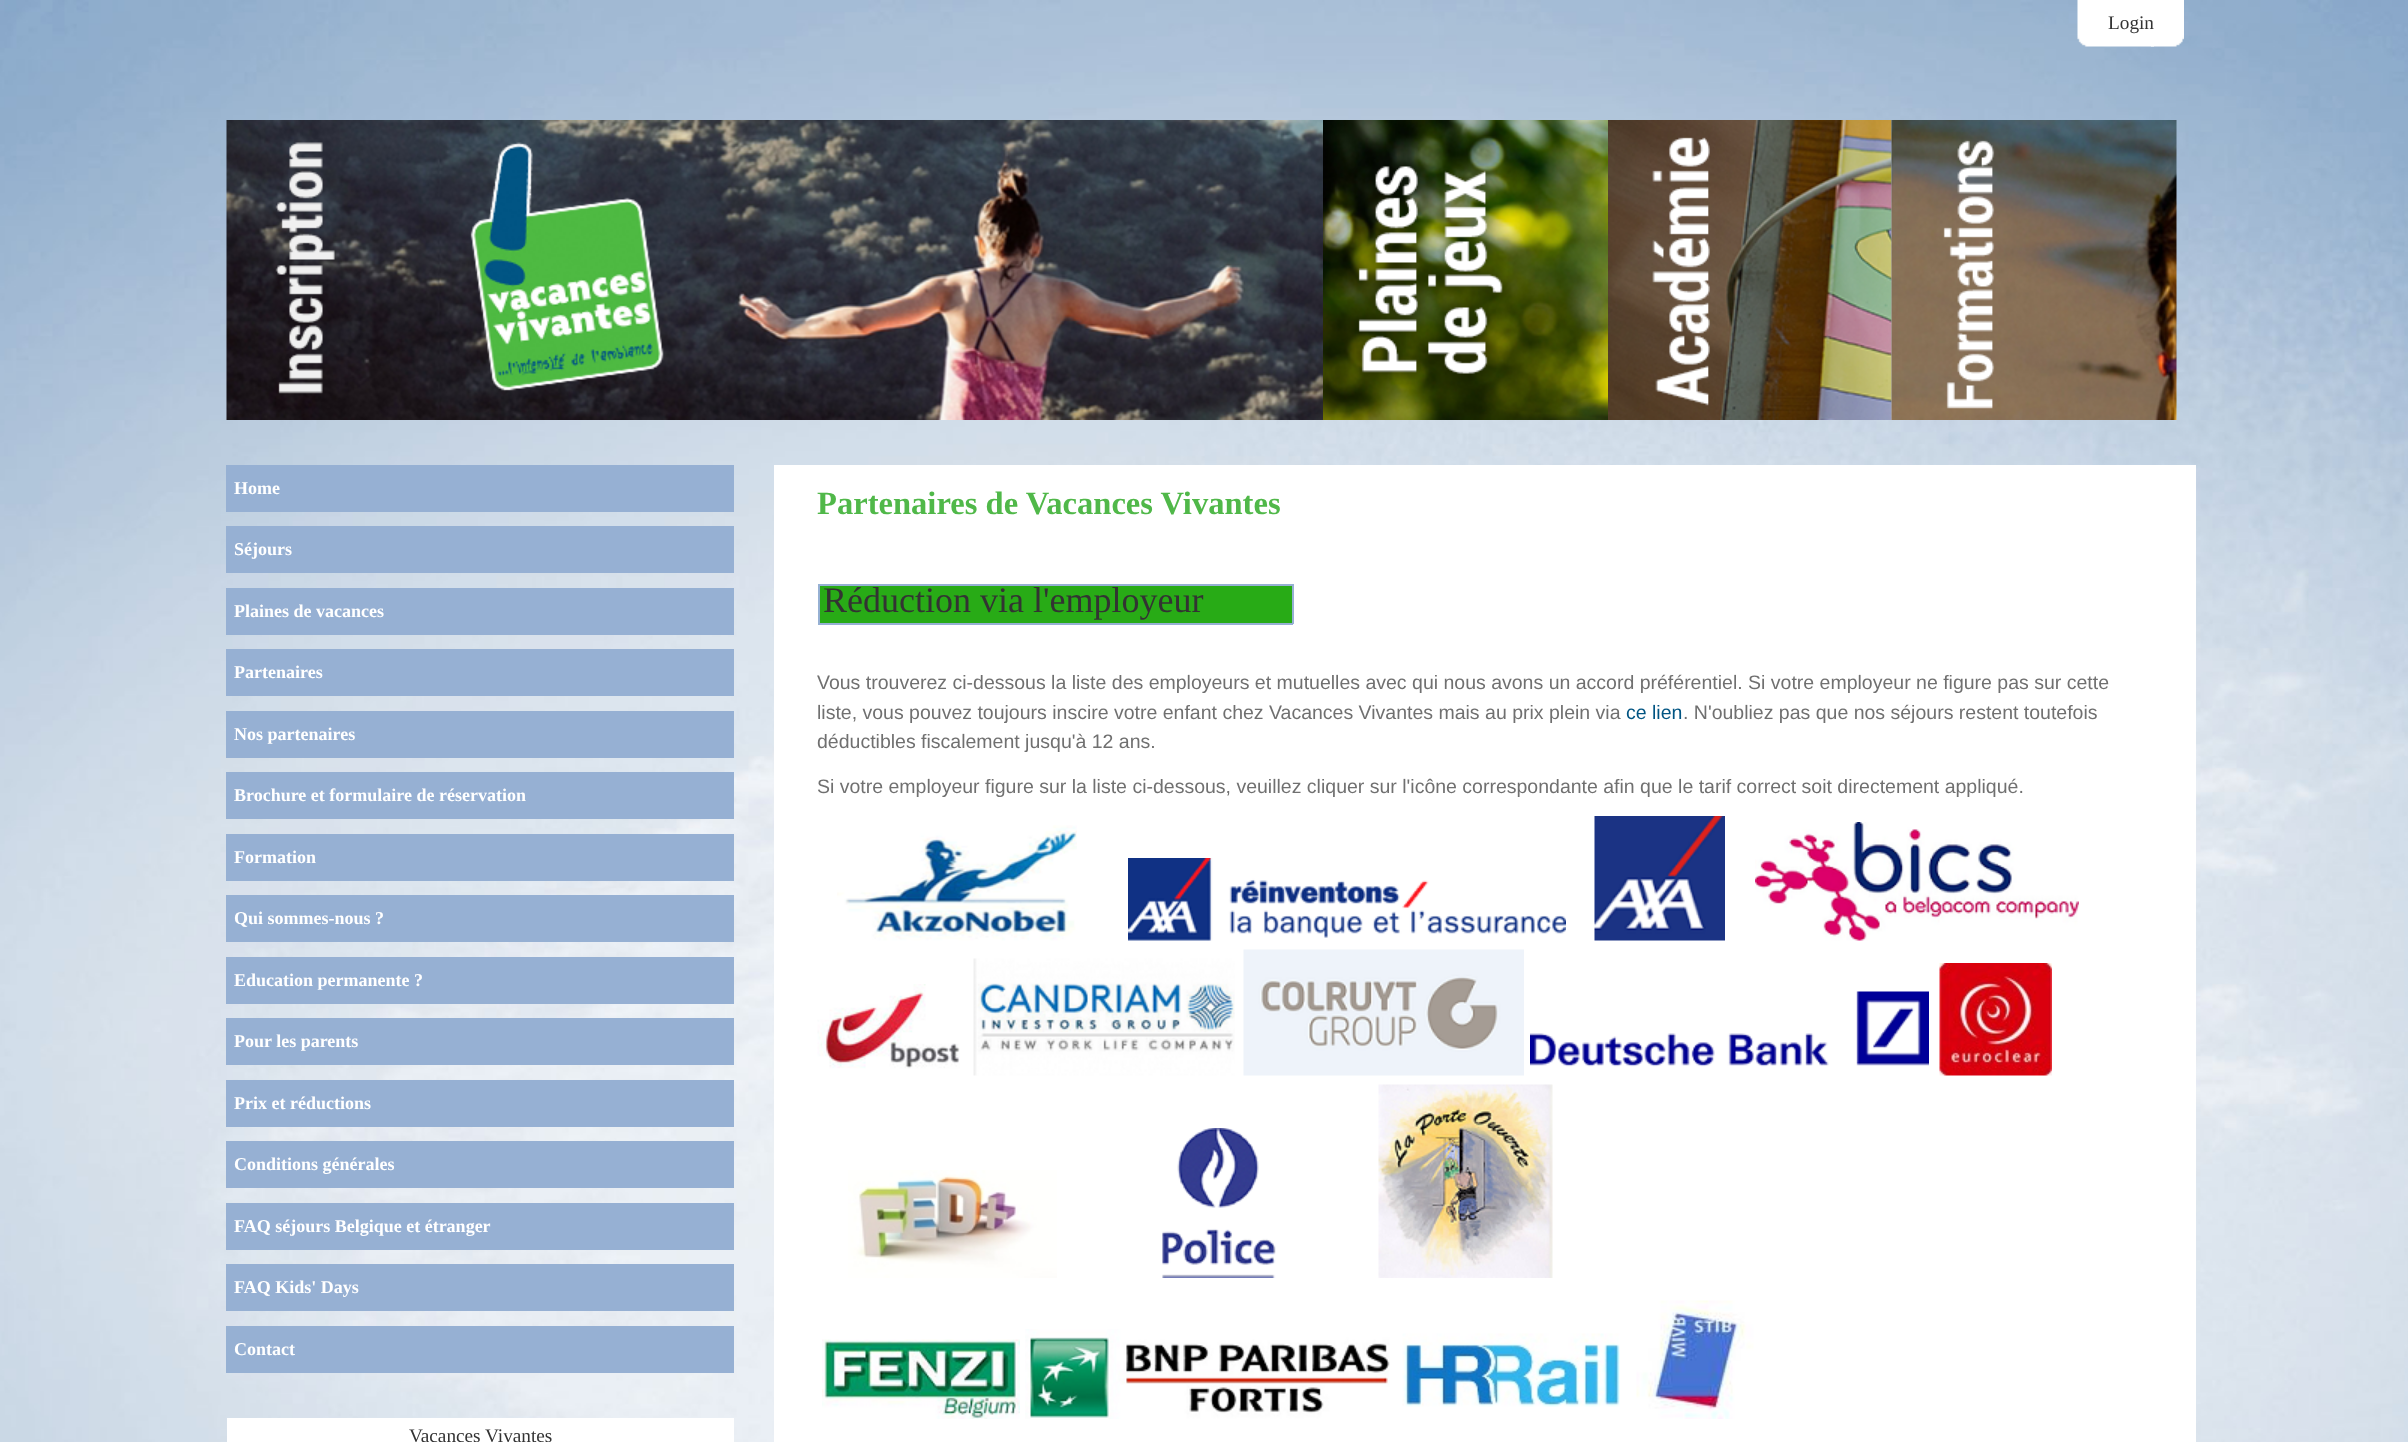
<!DOCTYPE html>
<meta charset="utf-8">
<style>body { margin: 0 } canvas { display: block }</style>
<canvas id="canvas" width="2408" height="1442"></canvas>
<script type="module">
  const canvas = document.getElementById("canvas");
  const g = canvas.getContext("2d");
  g.miterLimit = 4;
  g.fontKerning = "normal";
  function drawText(s, x, y, [font, color]) {
    g.font = font;
    g.fillStyle = color;
    g.fillText(s, x, y);
  }
  function fillBox(x, y, w, h, color) {
    g.fillStyle = color;
    g.fillRect(x, y, w, h);
  }
  async function drawPicture(src, x, y, w, h) {
    const img = new Image();
    img.src = src;
    await img.decode();
    g.drawImage(img, x, y, w, h);
  }

  const s1 = ["19.25px Liberation Serif", "#333333"];
  const s2 = ["bold 18px Liberation Serif", "#FFFFFF"];
  const s3 = ["bold 32.6px Liberation Serif", "#50B849"];
  const s4 = ["36px Liberation Serif", "#333333"];
  const s5 = ["19.5px Liberation Sans", "#707070"];
  const s6 = ["19.5px Liberation Sans", "#005482"];

  fillBox(0, 0, 2408, 1442, "#FFFFFF");
  await drawPicture("pic1.png", 0, 0, 2408, 1442);
  await drawPicture("pic2.png", 2151, 0, 33, 47);
  await drawPicture("pic3.png", 2077, 0, 77, 47);
  drawText("Login", 2108, 29, s1);
  await drawPicture("pic4.png", 226, 120, 1097, 300);
  await drawPicture("pic5.png", 1323, 120, 285, 300);
  await drawPicture("pic6.png", 1608, 120, 284, 300);
  await drawPicture("pic7.png", 1891, 120, 286, 300);
  fillBox(226, 465, 508, 47, "#96B0D3");
  drawText("Home", 234, 494, s2);
  fillBox(226, 526, 508, 47, "#96B0D3");
  drawText("Séjours", 234, 555, s2);
  fillBox(226, 588, 508, 47, "#96B0D3");
  drawText("Plaines de vacances", 234, 617, s2);
  fillBox(226, 649, 508, 47, "#96B0D3");
  drawText("Partenaires", 234, 678, s2);
  fillBox(226, 711, 508, 47, "#96B0D3");
  drawText("Nos partenaires", 234, 740, s2);
  fillBox(226, 772, 508, 47, "#96B0D3");
  drawText("Brochure et formulaire de réservation", 234, 801, s2);
  fillBox(226, 834, 508, 47, "#96B0D3");
  drawText("Formation", 234, 863, s2);
  fillBox(226, 895, 508, 47, "#96B0D3");
  drawText("Qui sommes-nous ?", 234, 924, s2);
  fillBox(226, 957, 508, 47, "#96B0D3");
  drawText("Education permanente ?", 234, 986, s2);
  fillBox(226, 1018, 508, 47, "#96B0D3");
  drawText("Pour les parents", 234, 1047, s2);
  fillBox(226, 1080, 508, 47, "#96B0D3");
  drawText("Prix et réductions", 234, 1109, s2);
  fillBox(226, 1141, 508, 47, "#96B0D3");
  drawText("Conditions générales", 234, 1170, s2);
  fillBox(226, 1203, 508, 47, "#96B0D3");
  drawText("FAQ séjours Belgique et étranger", 234, 1232, s2);
  fillBox(226, 1264, 508, 47, "#96B0D3");
  drawText("FAQ Kids' Days", 234, 1293, s2);
  fillBox(226, 1326, 508, 47, "#96B0D3");
  drawText("Contact", 234, 1355, s2);
  fillBox(227, 1418, 507, 24, "#FFFFFF");
  drawText("Vacances Vivantes", 409, 1442, s1);
  fillBox(774, 465, 1422, 977, "#FFFFFF");
  drawText("Partenaires de Vacances Vivantes", 817, 514, s3);
  fillBox(820, 586, 472, 37, "#28AB16");
  fillBox(818, 584, 475, 2, "#96B0D3");
  fillBox(1292, 584, 2, 40, "#96B0D3");
  fillBox(818, 623, 475, 2, "#96B0D3");
  fillBox(818, 584, 2, 40, "#96B0D3");
  drawText("Réduction via l'employeur", 823, 612, s4);
  drawText("Vous trouverez ci-dessous la liste des employeurs et mutuelles avec qui nous avons un accord préférentiel. Si votre employeur ne figure pas sur cette", 817, 689, s5);
  drawText("liste, vous pouvez toujours inscire votre enfant chez Vacances Vivantes mais au prix plein via", 817, 719, s5);
  drawText("ce lien", 1626, 719, s6);
  drawText(". N'oubliez pas que nos séjours restent toutefois", 1683, 719, s5);
  drawText("déductibles fiscalement jusqu'à 12 ans.", 817, 748, s5);
  drawText("Si votre employeur figure sur la liste ci-dessous, veuillez cliquer sur l'icône correspondante afin que le tarif correct soit directement appliqué.", 817, 793, s5);
  await drawPicture("pic8.png", 837, 825, 240, 116);
  await drawPicture("pic9.png", 1128, 858, 438, 83);
  await drawPicture("pic10.png", 1594, 816, 131, 125);
  await drawPicture("pic11.png", 1755, 822, 324, 119);
  await drawPicture("pic12.png", 817, 984, 143, 85);
  await drawPicture("pic13.png", 973, 958, 262, 118);
  await drawPicture("pic14.png", 1243, 949, 281, 127);
  await drawPicture("pic15.png", 1530, 991, 399, 76);
  await drawPicture("pic16.png", 1939, 963, 113, 113);
  await drawPicture("pic17.png", 848, 1170, 209, 108);
  await drawPicture("pic18.png", 1162, 1128, 114, 150);
  await drawPicture("pic19.png", 1378, 1084, 175, 194);
  await drawPicture("pic20.png", 822, 1339, 198, 80);
  await drawPicture("pic21.png", 1025, 1329, 365, 90);
  await drawPicture("pic22.png", 1402, 1333, 218, 74);
  await drawPicture("pic23.png", 1636, 1300, 118, 119);
</script>
